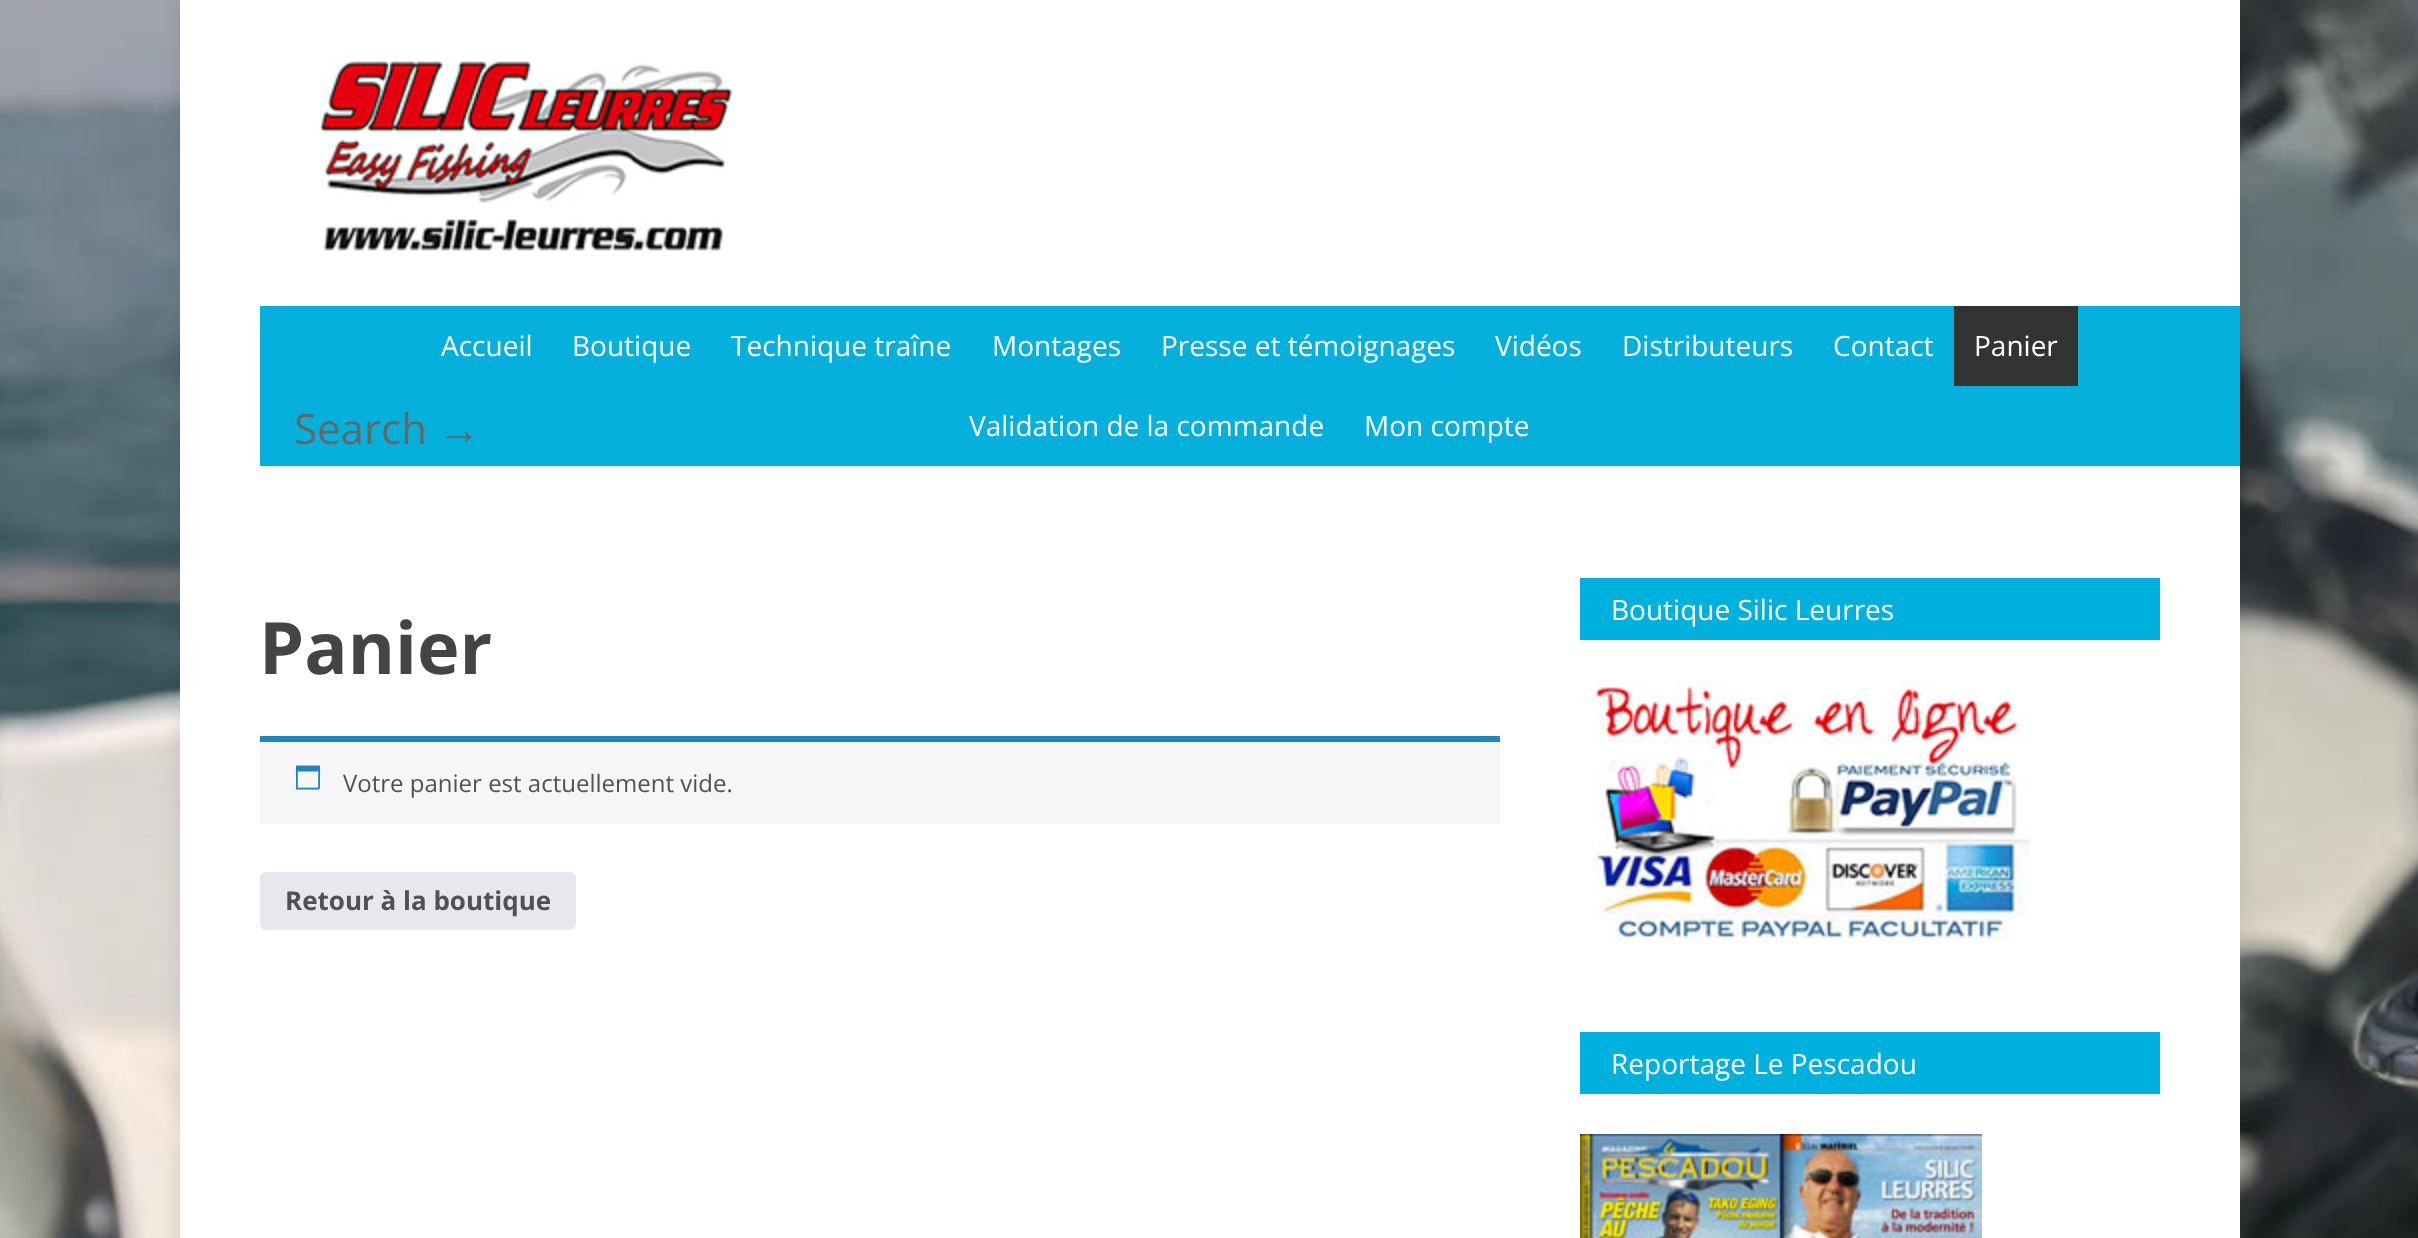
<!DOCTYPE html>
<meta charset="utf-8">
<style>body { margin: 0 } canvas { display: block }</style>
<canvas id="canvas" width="2418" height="1238"></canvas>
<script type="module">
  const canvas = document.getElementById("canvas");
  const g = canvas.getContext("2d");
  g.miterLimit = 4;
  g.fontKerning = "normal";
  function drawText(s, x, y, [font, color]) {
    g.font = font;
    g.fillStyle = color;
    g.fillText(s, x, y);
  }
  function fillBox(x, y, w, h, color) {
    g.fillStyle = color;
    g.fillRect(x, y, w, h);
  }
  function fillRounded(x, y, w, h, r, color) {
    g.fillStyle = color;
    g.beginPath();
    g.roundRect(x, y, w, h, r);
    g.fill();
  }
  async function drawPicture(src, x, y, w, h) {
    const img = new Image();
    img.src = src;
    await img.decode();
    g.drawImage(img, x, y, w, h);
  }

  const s1 = ["28px Open Sans", "#FFFFFF"];
  const s2 = ["42px Open Sans", "#666666"];
  const s3 = ["42px Liberation Sans", "#666666"];
  const s4 = ["bold 72px Open Sans", "#444444"];
  const s5 = ["24px Open Sans", "#515151"];
  const s6 = ["bold 26px Open Sans", "#515151"];

  fillBox(0, 0, 2418, 1238, "#FFFFFF");
  await drawPicture("pic1.png", 0, 0, 2418, 1238);
  g.fillStyle = "rgba(0, 0, 0, 0.1)";
  g.filter = "blur(10px)";
  g.beginPath();
  g.rect(180, 0, 2060, 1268);
  g.fill();
  g.filter = "none";
  fillBox(180, 0, 2060, 1238, "#FFFFFF");
  await drawPicture("pic2.png", 319, 61, 414, 190);
  fillBox(260, 306, 1980, 160, "#06B0DC");
  drawText("Accueil", 441, 356, s1);
  drawText("Boutique", 572, 356, s1);
  drawText("Technique traîne", 731, 356, s1);
  drawText("Montages", 992, 356, s1);
  drawText("Presse et témoignages", 1161, 356, s1);
  drawText("Vidéos", 1495, 356, s1);
  drawText("Distributeurs", 1622, 356, s1);
  drawText("Contact", 1833, 356, s1);
  fillBox(1954, 306, 124, 80, "#333333");
  drawText("Panier", 1974, 356, s1);
  drawText("Search", 294, 444, s2);
  drawText("→", 438, 444, s3);
  drawText("Validation de la commande", 969, 436, s1);
  drawText("Mon compte", 1364, 436, s1);
  drawText("Panier", 259, 674, s4);
  fillBox(260, 742, 1240, 82, "#F6F5F8");
  fillBox(260, 736, 1240, 6, "#1E85BE");
  await drawPicture("pic3.png", 296, 765, 24, 25);
  drawText("Votre panier est actuellement vide.", 343, 792, s5);
  fillRounded(260, 872, 316, 58, 6, "#E9E6ED");
  drawText("Retour à la boutique", 285, 910, s6);
  fillBox(1580, 578, 580, 62, "#00B1DD");
  drawText("Boutique Silic Leurres", 1611, 620, s1);
  await drawPicture("pic4.png", 1592, 680, 438, 264);
  fillBox(1580, 1032, 580, 62, "#00B1DD");
  drawText("Reportage Le Pescadou", 1611, 1074, s1);
  await drawPicture("pic5.png", 1580, 1134, 402, 104);
</script>
